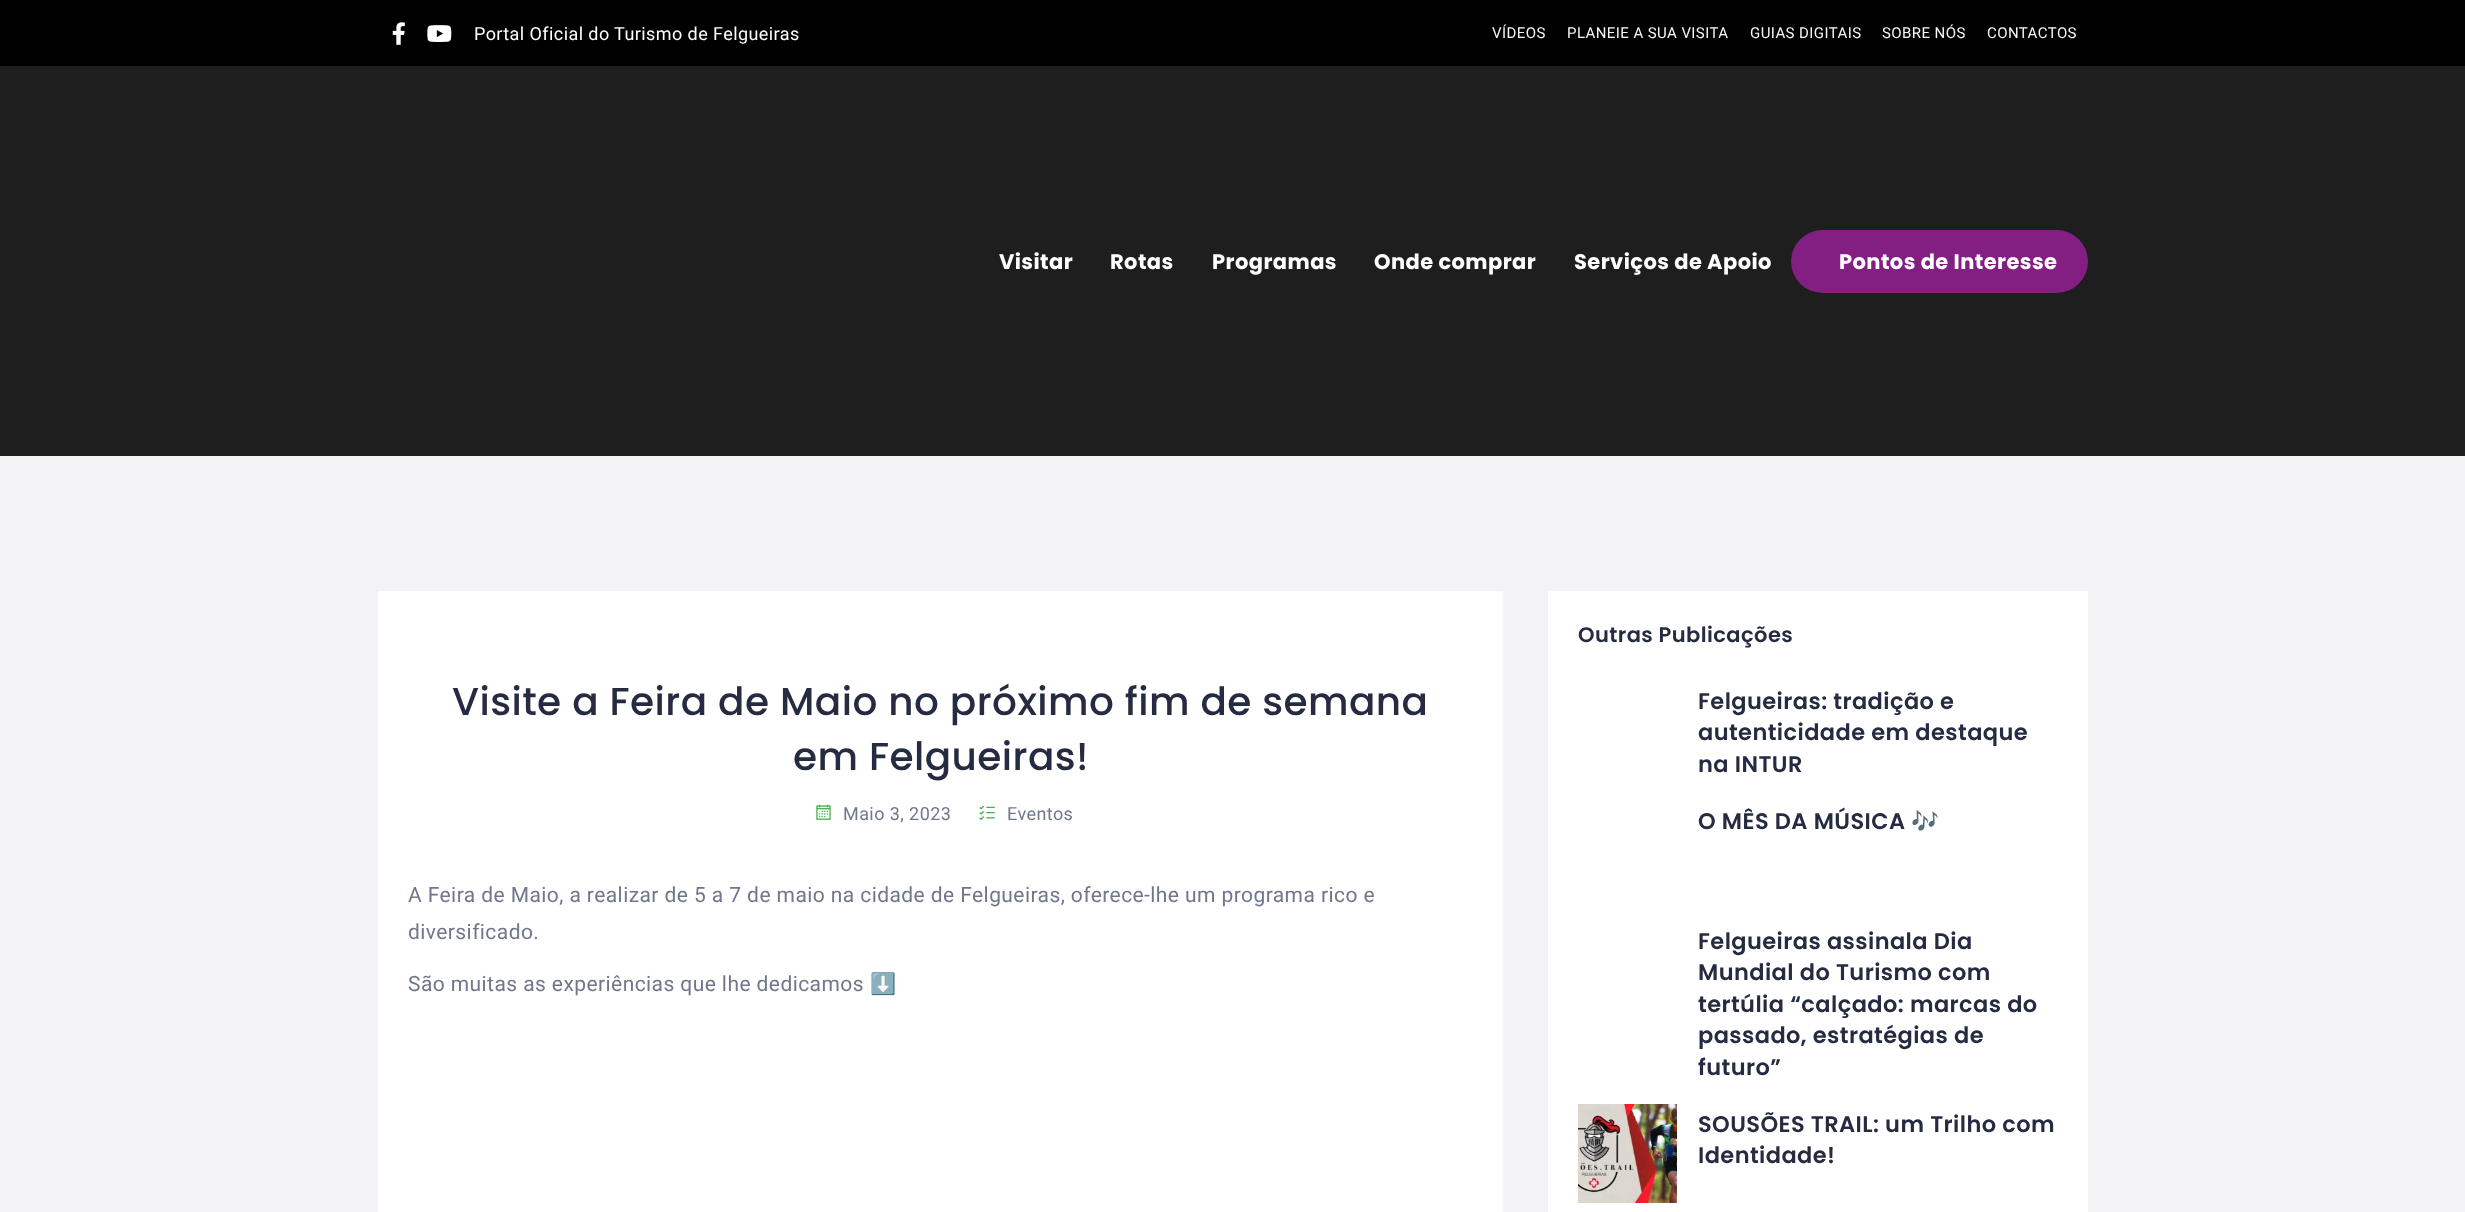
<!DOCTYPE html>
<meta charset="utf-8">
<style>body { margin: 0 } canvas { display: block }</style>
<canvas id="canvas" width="2465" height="1212"></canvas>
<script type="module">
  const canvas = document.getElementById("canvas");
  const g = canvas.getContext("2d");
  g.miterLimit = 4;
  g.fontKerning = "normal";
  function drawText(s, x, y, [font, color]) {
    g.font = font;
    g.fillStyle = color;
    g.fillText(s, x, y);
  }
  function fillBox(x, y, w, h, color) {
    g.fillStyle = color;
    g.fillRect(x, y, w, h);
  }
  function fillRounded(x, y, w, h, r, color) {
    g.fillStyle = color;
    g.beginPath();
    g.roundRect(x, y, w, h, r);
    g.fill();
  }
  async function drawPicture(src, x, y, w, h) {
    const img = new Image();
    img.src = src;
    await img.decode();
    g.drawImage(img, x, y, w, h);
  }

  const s1 = ["18px Roboto", "#FFFFFF"];
  const s2 = ["15px Roboto", "#F8F6F6"];
  const s3 = ["bold 21px Poppins", "#FFFFFF"];
  const s4 = ["500 39px Poppins", "#252C41"];
  const s5 = ["18px Roboto", "#70778B"];
  const s6 = ["21px Roboto", "#70778B"];
  const s7 = ["21px Noto Color Emoji", "#70778B"];
  const s8 = ["600 21px Poppins", "#252C41"];
  const s9 = ["600 22.5px Poppins", "#252C41"];
  const s10 = ["bold 22.5px Noto Color Emoji", "#252C41"];

  fillBox(0, 0, 2465, 1212, "#F3F3F6");
  fillBox(0, 0, 2465, 66, "#000000");
  await drawPicture("pic1.png", 392, 22, 13, 23);
  await drawPicture("pic2.png", 427, 25, 25, 17);
  g.letterSpacing = "0.42px";
  drawText("Portal Oficial do Turismo de Felgueiras", 474, 40, s1);
  drawText("VÍDEOS", 1492, 38, s2);
  drawText("PLANEIE A SUA VISITA", 1567, 38, s2);
  drawText("GUIAS DIGITAIS", 1750, 38, s2);
  drawText("SOBRE NÓS", 1882, 38, s2);
  drawText("CONTACTOS", 1987, 38, s2);
  fillBox(0, 66, 2465, 390, "#1E1E1E");
  drawText("Visitar", 999, 269, s3);
  drawText("Rotas", 1110, 269, s3);
  drawText("Programas", 1212, 269, s3);
  drawText("Onde comprar", 1374, 269, s3);
  drawText("Serviços de Apoio", 1574, 269, s3);
  fillRounded(1791, 230, 297, 63, 31.5, "#831F82");
  drawText("Pontos de Interesse", 1839, 269, s3);
  fillBox(378, 591, 1125, 621, "#FFFFFF");
  drawText("Visite a Feira de Maio no próximo fim de semana", 452, 715, s4);
  drawText("em Felgueiras!", 793, 770, s4);
  await drawPicture("pic3.png", 816, 804, 15, 16);
  drawText("Maio 3, 2023", 843, 820, s5);
  await drawPicture("pic4.png", 979, 805, 16, 15);
  drawText("Eventos", 1007, 820, s5);
  drawText("A Feira de Maio, a realizar de 5 a 7 de maio na cidade de Felgueiras, oferece-lhe um programa rico e", 408, 902, s6);
  drawText("diversificado.", 408, 939, s6);
  drawText("São muitas as experiências que lhe dedicamos", 408, 991, s6);
  drawText("⬇️", 870, 991, s7);
  fillBox(1548, 591, 540, 621, "#FFFFFF");
  drawText("Outras Publicações", 1578, 642, s8);
  drawText("Felgueiras: tradição e", 1698, 709, s9);
  drawText("autenticidade em destaque", 1698, 740, s9);
  drawText("na INTUR", 1698, 772, s9);
  drawText("O MÊS DA MÚSICA", 1698, 829, s9);
  drawText("🎶", 1911, 829, s10);
  drawText("Felgueiras assinala Dia", 1698, 949, s9);
  drawText("Mundial do Turismo com", 1698, 980, s9);
  drawText("tertúlia “calçado: marcas do", 1698, 1012, s9);
  drawText("passado, estratégias de", 1698, 1043, s9);
  drawText("futuro”", 1698, 1075, s9);
  await drawPicture("pic5.png", 1578, 1104, 99, 99);
  drawText("SOUSÕES TRAIL: um Trilho com", 1698, 1132, s9);
  drawText("Identidade!", 1698, 1163, s9);
</script>
